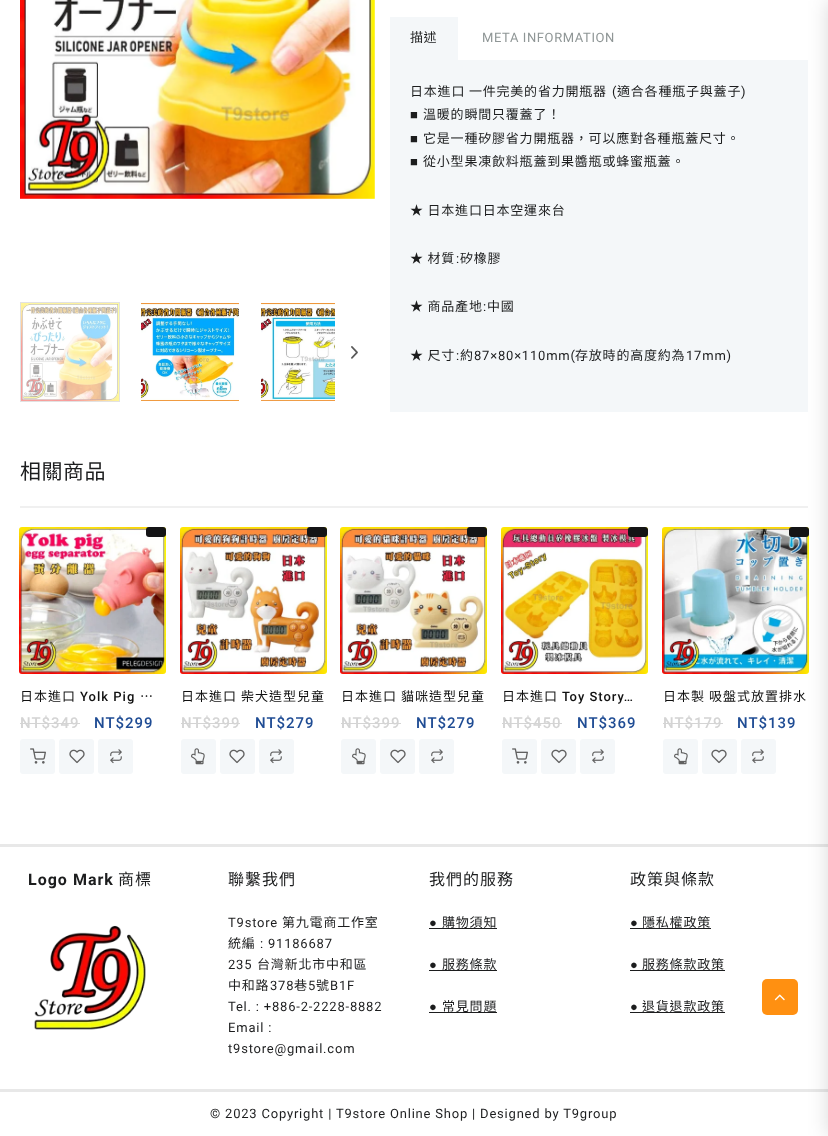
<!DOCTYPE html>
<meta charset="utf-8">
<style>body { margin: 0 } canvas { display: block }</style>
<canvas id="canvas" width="828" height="1136"></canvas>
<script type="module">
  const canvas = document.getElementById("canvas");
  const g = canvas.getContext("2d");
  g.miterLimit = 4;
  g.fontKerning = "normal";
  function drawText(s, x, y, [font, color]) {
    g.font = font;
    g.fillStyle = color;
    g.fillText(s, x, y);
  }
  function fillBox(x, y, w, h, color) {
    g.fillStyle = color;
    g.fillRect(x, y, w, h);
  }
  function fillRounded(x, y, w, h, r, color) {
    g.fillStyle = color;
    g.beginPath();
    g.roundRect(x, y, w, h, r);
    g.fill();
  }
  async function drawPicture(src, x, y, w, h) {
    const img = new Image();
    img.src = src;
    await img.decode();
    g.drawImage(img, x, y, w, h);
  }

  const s1 = ["13px Noto Sans CJK TC", "#1C1D1E"];
  const s2 = ["13px Roboto", "#8F9696"];
  const s3 = ["13px Roboto", "#1C1D1E"];
  const s4 = ["13px Liberation Sans", "#1C1D1E"];
  const s5 = ["21px Noto Sans CJK TC", "#1C1D1E"];
  const s6 = ["13px Noto Sans CJK TC", "#111111"];
  const s7 = ["500 13px Roboto", "#111111"];
  const s8 = ["500 15px Roboto", "#D4D4D4"];
  const s9 = ["500 15px Roboto", "#1F4C94"];
  const s10 = ["bold 16px Roboto", "#1C1D1E"];
  const s11 = ["16px Noto Sans CJK TC", "#1C1D1E"];

  fillBox(0, 0, 828, 1136, "#FFFFFF");
  await drawPicture("pic1.png", 20, 0, 355, 199);
  g.strokeStyle = "#E2E2E2";
  g.strokeRect(20.5, 302.5, 99, 99);
  await drawPicture("pic2.png", 21, 303, 98, 98);
  await drawPicture("pic3.png", 141, 303, 98, 98);
  await drawPicture("pic4.png", 261, 303, 74, 98);
  await drawPicture("pic5.png", 351, 346, 7, 13);
  fillBox(390, 17, 68, 43, "#F4F7F9");
  g.letterSpacing = "0.6px";
  drawText("描述", 410, 42, s1);
  drawText("META INFORMATION", 482, 42, s2);
  fillBox(390, 60, 418, 352, "#F4F7F9");
  g.letterSpacing = "0.8px";
  drawText("日本進口 一件完美的省力開瓶器", 410, 96, s1);
  drawText("(", 612, 96, s3);
  drawText("適合各種瓶子與蓋子", 617, 96, s1);
  drawText(")", 741, 96, s3);
  drawText("■", 410, 119, s4);
  drawText("溫暖的瞬間只覆蓋了！", 423, 119, s1);
  drawText("■", 410, 143, s4);
  drawText("它是一種矽膠省力開瓶器，可以應對各種瓶蓋尺寸。", 423, 143, s1);
  drawText("■", 410, 166, s4);
  drawText("從小型果凍飲料瓶蓋到果醬瓶或蜂蜜瓶蓋。", 423, 166, s1);
  drawText("★ 日本進口日本空運來台", 410, 215, s1);
  drawText("★ 材質", 410, 263, s1);
  drawText(":", 456, 263, s3);
  drawText("矽橡膠", 460, 263, s1);
  drawText("★ 商品產地", 410, 311, s1);
  drawText(":", 483, 311, s3);
  drawText("中國", 487, 311, s1);
  drawText("★ 尺寸", 410, 360, s1);
  drawText(":", 456, 360, s3);
  drawText("約", 460, 360, s1);
  drawText("87×80×110mm(", 474, 360, s3);
  drawText("存放時的高度約為", 575, 360, s1);
  drawText("17mm)", 686, 360, s3);
  fillBox(20, 506, 788, 2, "#F0F0F0");
  g.letterSpacing = "0.5px";
  drawText("相關商品", 20, 479, s5);
  await drawPicture("pic6.png", 19, 527, 147, 147);
  fillRounded(146, 527, 20, 10, 3, "#141415");
  g.letterSpacing = "1px";
  drawText("日本進口", 20, 701, s6);
  drawText("Yolk Pig", 80, 701, s7);
  drawText("…", 140, 701, s6);
  drawText("NT$349", 20, 728, s8);
  fillBox(20, 723, 60, 1, "#D4D4D4");
  drawText("NT$299", 94, 728, s9);
  fillRounded(20, 739, 35, 35, 3, "#F4F7F9");
  await drawPicture("pic7.png", 30, 748, 16, 16);
  fillRounded(59, 739, 35, 35, 3, "#F4F7F9");
  await drawPicture("pic8.png", 69, 749, 16, 15);
  fillRounded(98, 739, 35, 35, 3, "#F4F7F9");
  await drawPicture("pic9.png", 110, 749, 12, 15);
  await drawPicture("pic10.png", 180, 527, 147, 147);
  fillRounded(307, 527, 20, 10, 3, "#141415");
  drawText("日本進口 柴犬造型兒童", 181, 701, s6);
  drawText("NT$399", 181, 728, s8);
  fillBox(181, 723, 59, 1, "#D4D4D4");
  drawText("NT$279", 255, 728, s9);
  fillRounded(181, 739, 35, 35, 3, "#F4F7F9");
  await drawPicture("pic11.png", 191, 748, 14, 17);
  fillRounded(220, 739, 35, 35, 3, "#F4F7F9");
  await drawPicture("pic8.png", 229, 749, 16, 15);
  fillRounded(259, 739, 35, 35, 3, "#F4F7F9");
  await drawPicture("pic9.png", 270, 749, 12, 15);
  await drawPicture("pic12.png", 340, 527, 147, 147);
  fillRounded(467, 527, 20, 10, 3, "#141415");
  drawText("日本進口 貓咪造型兒童", 341, 701, s6);
  drawText("NT$399", 341, 728, s8);
  fillBox(341, 723, 60, 1, "#D4D4D4");
  drawText("NT$279", 416, 728, s9);
  fillRounded(341, 739, 35, 35, 3, "#F4F7F9");
  await drawPicture("pic11.png", 352, 748, 14, 17);
  fillRounded(380, 739, 35, 35, 3, "#F4F7F9");
  await drawPicture("pic8.png", 390, 749, 16, 15);
  fillRounded(419, 739, 35, 35, 3, "#F4F7F9");
  await drawPicture("pic9.png", 431, 749, 12, 15);
  await drawPicture("pic13.png", 501, 527, 147, 147);
  fillRounded(628, 527, 20, 10, 3, "#141415");
  drawText("日本進口", 502, 701, s6);
  drawText("Toy Story…", 562, 701, s7);
  drawText("NT$450", 502, 728, s8);
  fillBox(502, 723, 60, 1, "#D4D4D4");
  drawText("NT$369", 577, 728, s9);
  fillRounded(502, 739, 35, 35, 3, "#F4F7F9");
  await drawPicture("pic7.png", 512, 748, 16, 16);
  fillRounded(541, 739, 35, 35, 3, "#F4F7F9");
  await drawPicture("pic8.png", 551, 749, 16, 15);
  fillRounded(580, 739, 35, 35, 3, "#F4F7F9");
  await drawPicture("pic9.png", 592, 749, 12, 15);
  await drawPicture("pic14.png", 662, 527, 147, 147);
  fillRounded(789, 527, 20, 10, 3, "#141415");
  drawText("日本製 吸盤式放置排水", 663, 701, s6);
  drawText("NT$179", 663, 728, s8);
  fillBox(663, 723, 60, 1, "#D4D4D4");
  drawText("NT$139", 737, 728, s9);
  fillRounded(663, 739, 35, 35, 3, "#F4F7F9");
  await drawPicture("pic11.png", 674, 748, 14, 17);
  fillRounded(702, 739, 35, 35, 3, "#F4F7F9");
  await drawPicture("pic8.png", 711, 749, 16, 15);
  fillRounded(741, 739, 35, 35, 3, "#F4F7F9");
  await drawPicture("pic9.png", 752, 749, 12, 15);
  fillBox(0, 844, 828, 3, "#E8E8E8");
  fillBox(0, 1089, 828, 3, "#E8E8E8");
  fillRounded(762, 979, 36, 36, 5, "#FF9011");
  g.fillStyle = "rgba(0, 0, 0, 0.15)";
  g.filter = "blur(10px)";
  g.beginPath();
  g.roundRect(828, 0, 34, 1136, 4);
  g.fill();
  g.filter = "none";
  drawText("Logo Mark", 28, 885, s10);
  drawText("商標", 118, 885, s11);
  await drawPicture("pic15.png", 34, 925, 112, 105);
  drawText("聯繫我們", 228, 885, s11);
  g.letterSpacing = "0.8px";
  drawText("T9store", 228, 927, s3);
  drawText("第九電商工作室", 282, 927, s1);
  drawText("統編", 228, 948, s1);
  drawText(": 91186687", 260, 948, s3);
  drawText("235", 228, 969, s3);
  drawText("台灣新北市中和區", 257, 969, s1);
  drawText("中和路", 228, 990, s1);
  drawText("378", 270, 990, s3);
  drawText("巷", 294, 990, s1);
  drawText("5", 308, 990, s3);
  drawText("號", 316, 990, s1);
  drawText("B1F", 330, 990, s3);
  drawText("Tel. : +886-2-2228-8882", 228, 1011, s3);
  drawText("Email :", 228, 1032, s3);
  drawText("t9store@gmail.com", 228, 1053, s3);
  g.letterSpacing = "1px";
  drawText("我們的服務", 429, 885, s11);
  g.letterSpacing = "0.8px";
  drawText("●", 429, 927, s4);
  fillBox(429, 928, 68, 1, "#1C1D1E");
  drawText("購物須知", 442, 927, s1);
  drawText("●", 429, 969, s4);
  fillBox(429, 970, 68, 1, "#1C1D1E");
  drawText("服務條款", 442, 969, s1);
  drawText("●", 429, 1011, s4);
  fillBox(429, 1012, 68, 1, "#1C1D1E");
  drawText("常見問題", 442, 1011, s1);
  g.letterSpacing = "1px";
  drawText("政策與條款", 630, 885, s11);
  g.letterSpacing = "0.8px";
  drawText("●", 630, 927, s4);
  fillBox(630, 928, 81, 1, "#1C1D1E");
  drawText("隱私權政策", 642, 927, s1);
  drawText("●", 630, 969, s4);
  fillBox(630, 970, 95, 1, "#1C1D1E");
  drawText("服務條款政策", 642, 969, s1);
  drawText("●", 630, 1011, s4);
  fillBox(630, 1012, 95, 1, "#1C1D1E");
  drawText("退貨退款政策", 642, 1011, s1);
  drawText("© 2023 Copyright | T9store Online Shop | Designed by T9group", 210, 1118, s3);
  await drawPicture("pic16.png", 774, 994, 11, 7);
</script>
